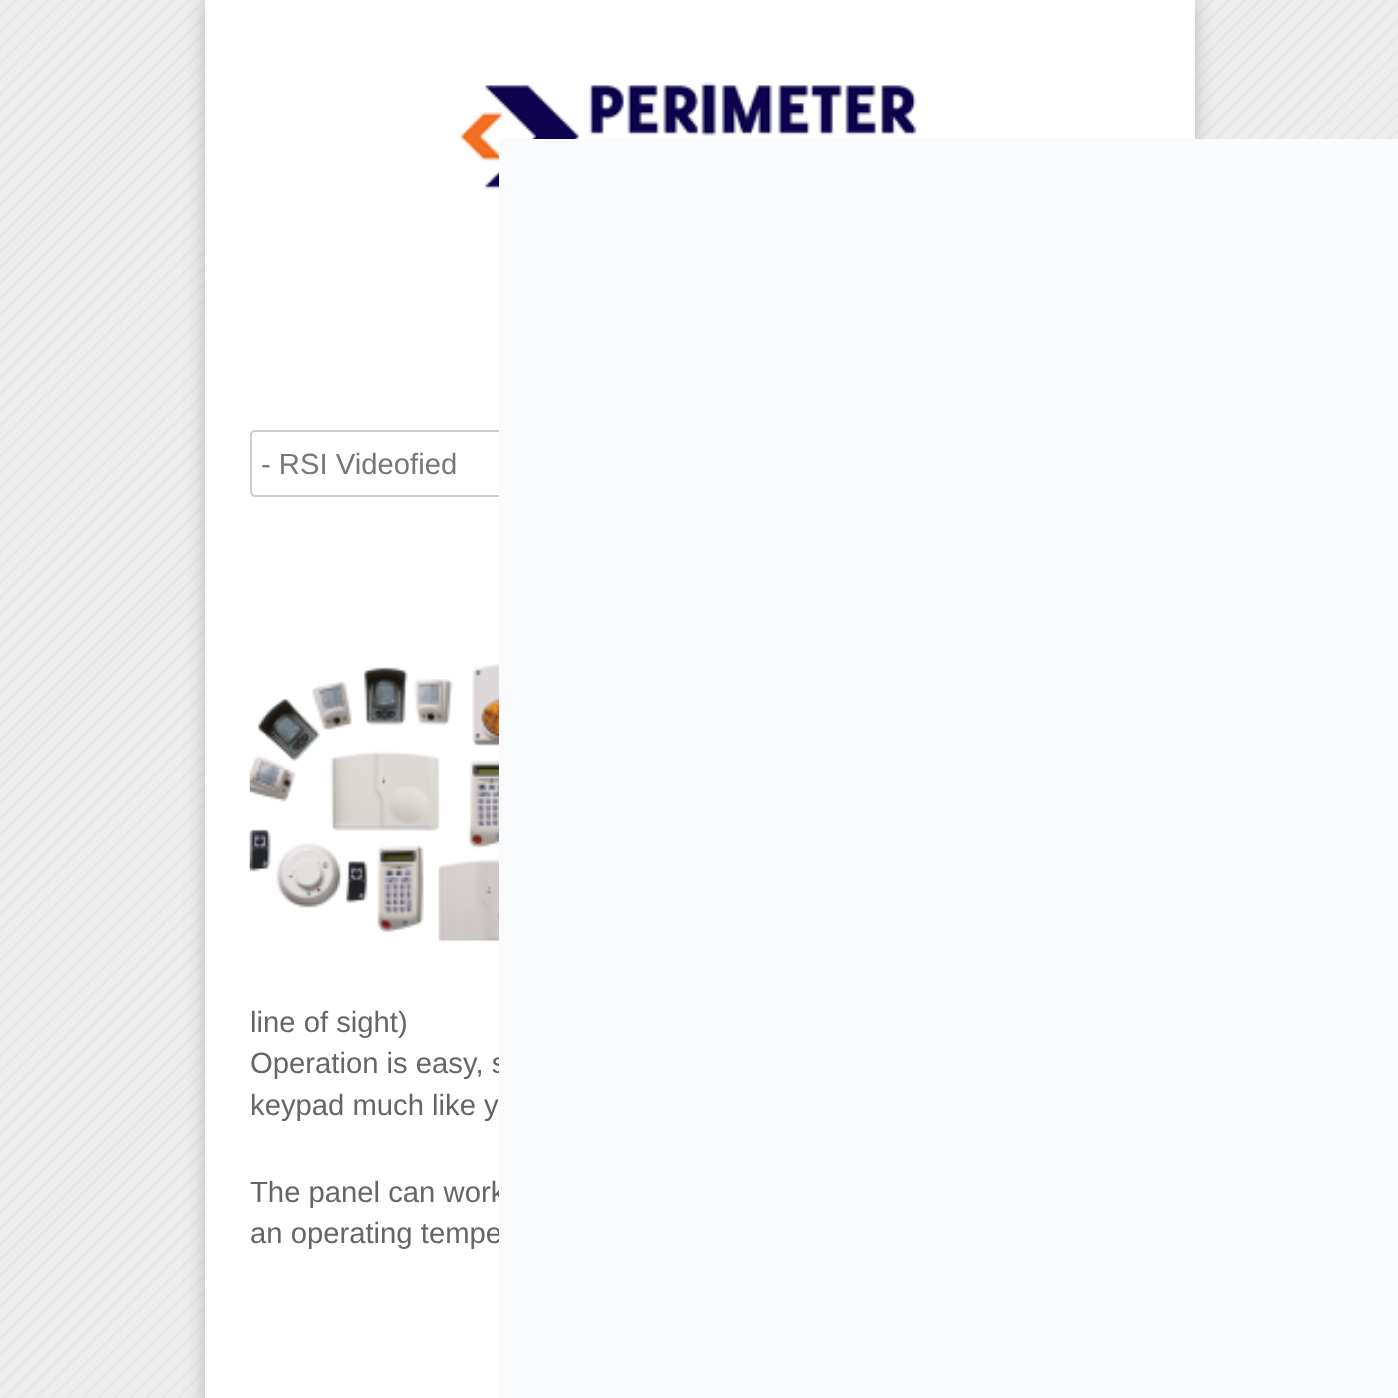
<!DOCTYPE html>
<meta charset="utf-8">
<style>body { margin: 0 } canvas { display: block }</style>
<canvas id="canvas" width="1398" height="1398"></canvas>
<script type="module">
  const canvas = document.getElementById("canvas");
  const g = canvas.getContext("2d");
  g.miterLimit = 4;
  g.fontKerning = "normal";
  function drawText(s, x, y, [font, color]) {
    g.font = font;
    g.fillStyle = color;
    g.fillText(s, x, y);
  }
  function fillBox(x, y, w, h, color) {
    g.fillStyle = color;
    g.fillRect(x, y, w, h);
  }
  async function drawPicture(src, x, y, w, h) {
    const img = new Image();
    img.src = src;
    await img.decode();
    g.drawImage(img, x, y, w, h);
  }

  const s1 = ["29.25px Liberation Sans", "#777777"];
  const s2 = ["29.25px Liberation Sans", "#666666"];

  fillBox(0, 0, 1398, 1398, "#EDEDED");
  await drawPicture("pic1.png", 0, 0, 1398, 1398);
  g.fillStyle = "#BBBBBB";
  g.filter = "blur(9px)";
  g.beginPath();
  g.rect(205, 0, 990, 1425);
  g.fill();
  g.filter = "none";
  fillBox(205, 0, 990, 1398, "#FFFFFF");
  await drawPicture("pic2.png", 460, 82, 457, 108);
  g.beginPath();
  g.roundRect(251, 431, 898, 65, 4);
  g.strokeStyle = "#CCCCCC";
  g.lineWidth = 2;
  g.stroke();
  drawText("- RSI Videofied", 261, 474, s1);
  await drawPicture("pic3.png", 249, 663, 250, 279);
  drawText("line of sight)", 250, 1032, s2);
  drawText("Operation is easy, s", 250, 1073, s2);
  drawText("keypad much like y", 250, 1115, s2);
  drawText("The panel can work", 250, 1202, s2);
  drawText("an operating tempe", 250, 1243, s2);
  fillBox(499, 139, 899, 1259, "#F9FAFB");
</script>
